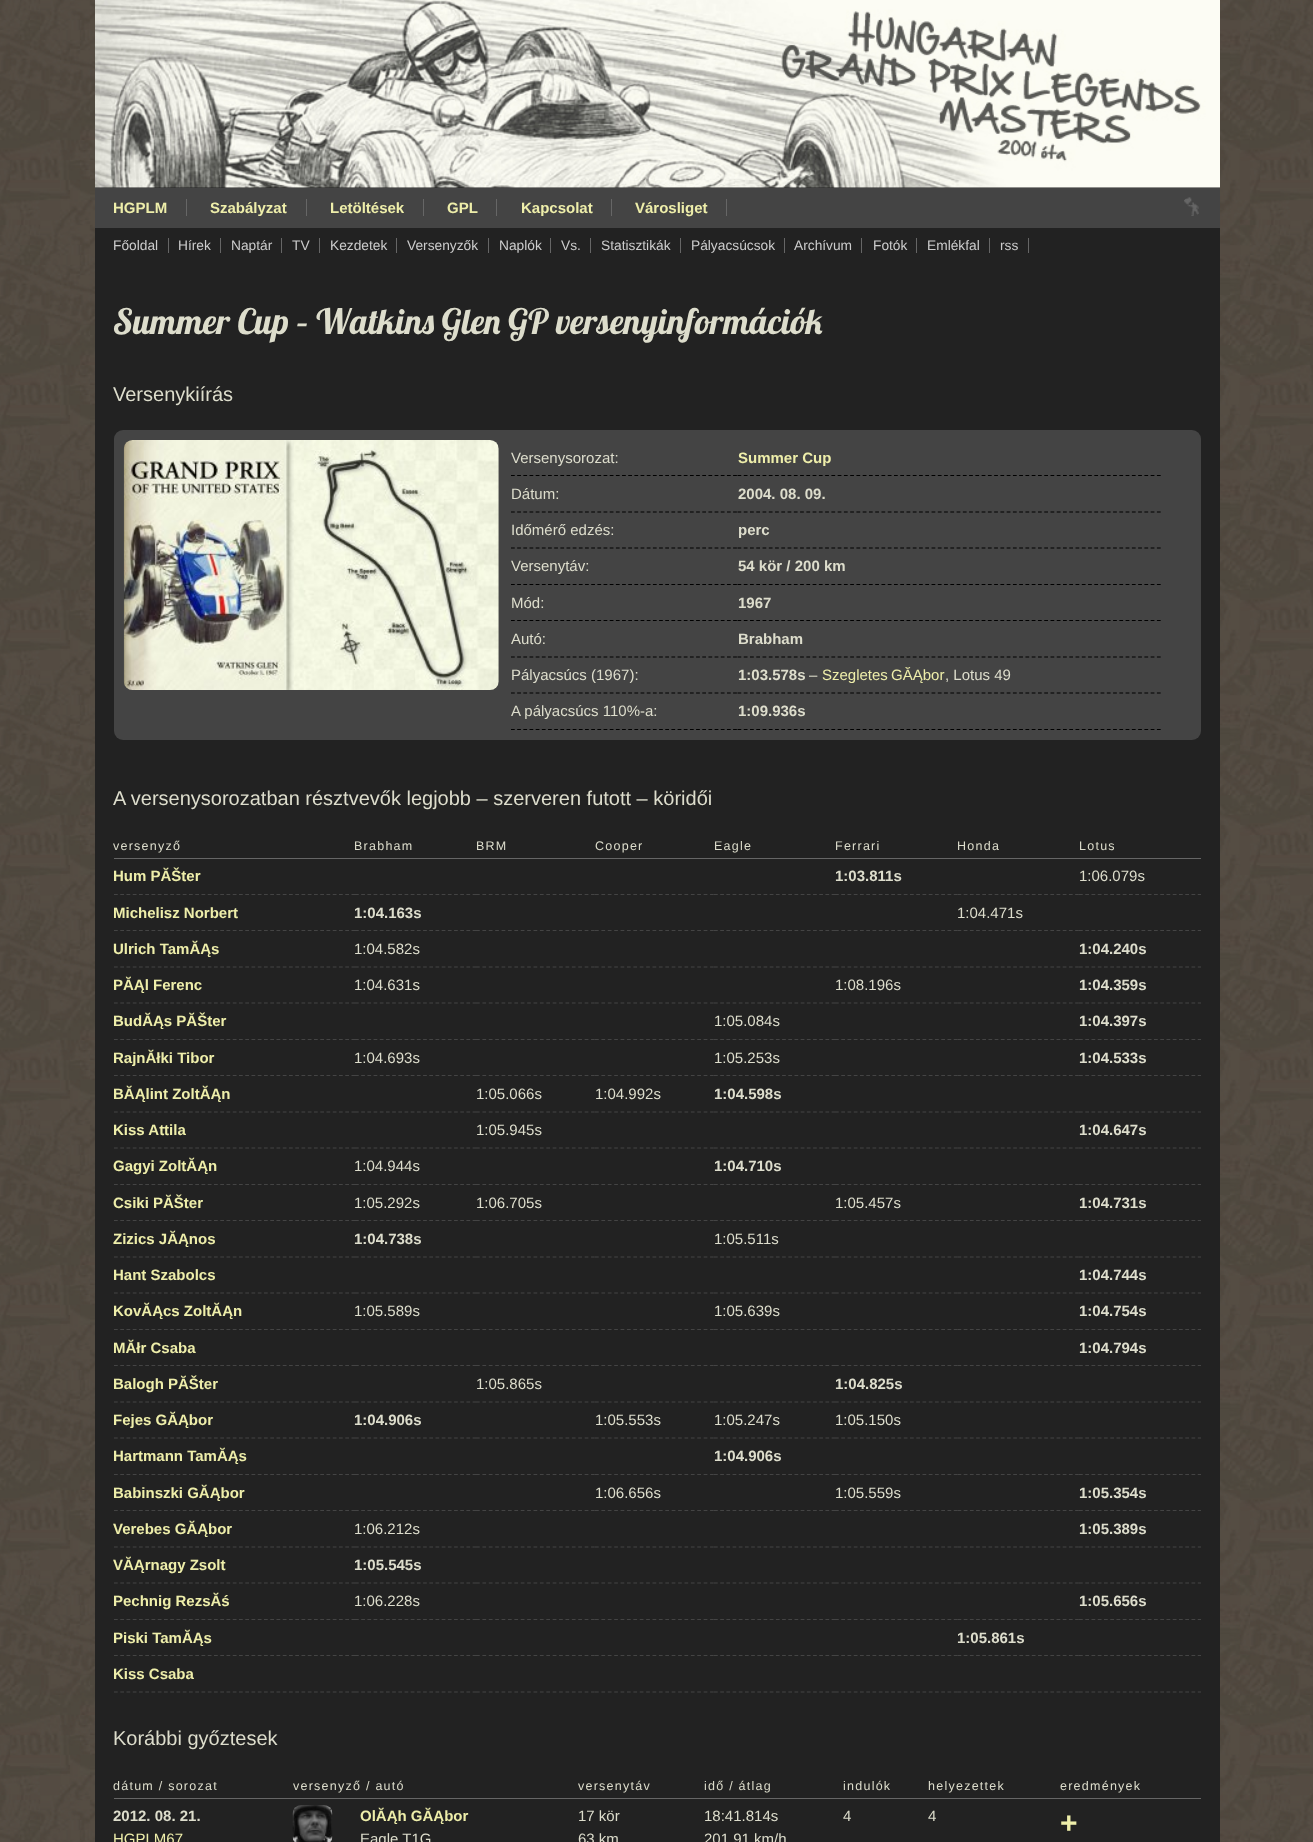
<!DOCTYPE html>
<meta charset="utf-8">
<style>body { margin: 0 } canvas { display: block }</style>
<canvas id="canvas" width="1313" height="1842"></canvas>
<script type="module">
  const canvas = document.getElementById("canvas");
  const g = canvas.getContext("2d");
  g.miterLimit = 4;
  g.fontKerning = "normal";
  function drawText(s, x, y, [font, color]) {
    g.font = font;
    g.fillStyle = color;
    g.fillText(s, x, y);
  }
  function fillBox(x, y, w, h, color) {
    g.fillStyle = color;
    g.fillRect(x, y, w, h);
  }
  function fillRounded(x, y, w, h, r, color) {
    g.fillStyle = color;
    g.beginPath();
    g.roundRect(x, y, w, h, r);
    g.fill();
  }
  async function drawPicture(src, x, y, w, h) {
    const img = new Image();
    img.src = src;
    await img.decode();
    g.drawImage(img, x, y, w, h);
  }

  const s1 = ["bold 15px Liberation Sans", "#EEEEAA"];
  const s2 = ["13.75px Liberation Sans", "#CCCCCC"];
  const s3 = ["35px 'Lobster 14'", "#DDDDCC"];
  const s4 = ["20px Liberation Sans", "#DDDDCC"];
  const s5 = ["15px Liberation Sans", "#DDDDCC"];
  const s6 = ["bold 15px Liberation Sans", "#DDDDCC"];
  const s7 = ["15px Liberation Sans", "#EEEEAA"];
  const s8 = ["12.5px Liberation Sans", "#DDDDCC"];
  const s9 = ["bold 30px Liberation Sans", "#EEEEAA"];

  fillBox(0, 0, 1313, 1842, "#FFFFFF");
  await drawPicture("pic1.png", 0, 0, 1313, 1842);
  fillBox(95, 187, 1125, 1655, "#222222");
  await drawPicture("pic2.png", 95, 0, 1125, 188);
  fillBox(95, 188, 1125, 40, "#444444");
  drawText("HGPLM", 113, 213, s1);
  fillBox(186, 199, 1, 17, "#666666");
  drawText("Szabályzat", 210, 213, s1);
  fillBox(306, 199, 1, 17, "#666666");
  drawText("Letöltések", 330, 213, s1);
  fillBox(423, 199, 1, 17, "#666666");
  drawText("GPL", 447, 213, s1);
  fillBox(496, 199, 1, 17, "#666666");
  drawText("Kapcsolat", 521, 213, s1);
  fillBox(611, 199, 1, 17, "#666666");
  drawText("Városliget", 635, 213, s1);
  fillBox(726, 199, 1, 17, "#666666");
  await drawPicture("pic3.png", 1184, 197, 15, 19);
  drawText("Főoldal", 113, 250, s2);
  fillBox(168, 238, 1, 15, "#666666");
  drawText("Hírek", 178, 250, s2);
  fillBox(220, 238, 1, 15, "#666666");
  drawText("Naptár", 231, 250, s2);
  fillBox(281, 238, 1, 15, "#666666");
  drawText("TV", 292, 250, s2);
  fillBox(319, 238, 1, 15, "#666666");
  drawText("Kezdetek", 330, 250, s2);
  fillBox(396, 238, 1, 15, "#666666");
  drawText("Versenyzők", 407, 250, s2);
  fillBox(488, 238, 1, 15, "#666666");
  drawText("Naplók", 499, 250, s2);
  fillBox(550, 238, 1, 15, "#666666");
  drawText("Vs.", 561, 250, s2);
  fillBox(590, 238, 1, 15, "#666666");
  drawText("Statisztikák", 601, 250, s2);
  fillBox(680, 238, 1, 15, "#666666");
  drawText("Pályacsúcsok", 691, 250, s2);
  fillBox(784, 238, 1, 15, "#666666");
  drawText("Archívum", 794, 250, s2);
  fillBox(861, 238, 1, 15, "#666666");
  drawText("Fotók", 873, 250, s2);
  fillBox(916, 238, 1, 15, "#666666");
  drawText("Emlékfal", 927, 250, s2);
  fillBox(989, 238, 1, 15, "#666666");
  drawText("rss", 1000, 250, s2);
  fillBox(1028, 238, 1, 15, "#666666");
  drawText("Summer Cup – Watkins Glen GP versenyinformációk", 113, 334, s3);
  drawText("Versenykiírás", 113, 401, s4);
  fillRounded(114, 430, 1087, 310, 9, "#444444");
  await drawPicture("pic4.png", 123, 440, 376, 250);
  g.beginPath();
  g.moveTo(511, 475.5);
  g.lineTo(737.5, 475.5);
  g.strokeStyle = "#000000";
  g.lineWidth = 1.2;
  g.setLineDash([3.75, 2.42]);
  g.stroke();
  drawText("Versenysorozat:", 511, 463, s5);
  g.beginPath();
  g.moveTo(737.5, 475.5);
  g.lineTo(1161, 475.5);
  g.setLineDash([3.75, 2.51]);
  g.stroke();
  drawText("Summer Cup", 738, 463, s1);
  g.beginPath();
  g.moveTo(511, 512);
  g.lineTo(737.5, 512);
  g.setLineDash([3.75, 2.42]);
  g.stroke();
  drawText("Dátum:", 511, 499, s5);
  g.beginPath();
  g.moveTo(737.5, 512);
  g.lineTo(1161, 512);
  g.setLineDash([3.75, 2.51]);
  g.stroke();
  drawText("2004. 08. 09.", 738, 499, s6);
  g.beginPath();
  g.moveTo(511, 548);
  g.lineTo(737.5, 548);
  g.setLineDash([3.75, 2.42]);
  g.stroke();
  drawText("Időmérő edzés:", 511, 535, s5);
  g.beginPath();
  g.moveTo(737.5, 548);
  g.lineTo(1161, 548);
  g.setLineDash([3.75, 2.51]);
  g.stroke();
  drawText("perc", 738, 535, s6);
  g.beginPath();
  g.moveTo(511, 584.5);
  g.lineTo(737.5, 584.5);
  g.setLineDash([3.75, 2.42]);
  g.stroke();
  drawText("Versenytáv:", 511, 571, s5);
  g.beginPath();
  g.moveTo(737.5, 584.5);
  g.lineTo(1161, 584.5);
  g.setLineDash([3.75, 2.51]);
  g.stroke();
  drawText("54 kör / 200 km", 738, 571, s6);
  g.beginPath();
  g.moveTo(511, 620.5);
  g.lineTo(737.5, 620.5);
  g.setLineDash([3.75, 2.42]);
  g.stroke();
  drawText("Mód:", 511, 608, s5);
  g.beginPath();
  g.moveTo(737.5, 620.5);
  g.lineTo(1161, 620.5);
  g.setLineDash([3.75, 2.51]);
  g.stroke();
  drawText("1967", 738, 608, s6);
  g.beginPath();
  g.moveTo(511, 657);
  g.lineTo(737.5, 657);
  g.setLineDash([3.75, 2.42]);
  g.stroke();
  drawText("Autó:", 511, 644, s5);
  g.beginPath();
  g.moveTo(737.5, 657);
  g.lineTo(1161, 657);
  g.setLineDash([3.75, 2.51]);
  g.stroke();
  drawText("Brabham", 738, 644, s6);
  g.beginPath();
  g.moveTo(511, 693);
  g.lineTo(737.5, 693);
  g.setLineDash([3.75, 2.42]);
  g.stroke();
  drawText("Pályacsúcs (1967):", 511, 680, s5);
  g.beginPath();
  g.moveTo(737.5, 693);
  g.lineTo(1161, 693);
  g.setLineDash([3.75, 2.51]);
  g.stroke();
  drawText("1:03.578s", 738, 680, s6);
  drawText("–", 809, 680, s5);
  g.wordSpacing = "-1px";
  drawText("Szegletes GĂĄbor", 822, 680, s7);
  g.wordSpacing = "0px";
  drawText(", Lotus 49", 945, 680, s5);
  g.beginPath();
  g.moveTo(511, 729.5);
  g.lineTo(737.5, 729.5);
  g.setLineDash([3.75, 2.42]);
  g.stroke();
  drawText("A pályacsúcs 110%-a:", 511, 716, s5);
  g.beginPath();
  g.moveTo(737.5, 729.5);
  g.lineTo(1161, 729.5);
  g.setLineDash([3.75, 2.51]);
  g.stroke();
  drawText("1:09.936s", 738, 716, s6);
  drawText("A versenysorozatban résztvevők legjobb – szerveren futott – köridői", 113, 805, s4);
  fillBox(114, 858, 1087, 1, "#666666");
  g.letterSpacing = "1.25px";
  drawText("versenyző", 113, 850, s8);
  drawText("Brabham", 354, 850, s8);
  drawText("BRM", 476, 850, s8);
  drawText("Cooper", 595, 850, s8);
  drawText("Eagle", 714, 850, s8);
  drawText("Ferrari", 835, 850, s8);
  drawText("Honda", 957, 850, s8);
  drawText("Lotus", 1079, 850, s8);
  g.beginPath();
  g.moveTo(114, 894.5);
  g.lineTo(355, 894.5);
  g.strokeStyle = "#444444";
  g.setLineDash([3.75, 2.5]);
  g.stroke();
  g.letterSpacing = "0px";
  drawText("Hum PĂŠter", 113, 881, s1);
  g.beginPath();
  g.moveTo(835, 894.5);
  g.lineTo(957.5, 894.5);
  g.stroke();
  drawText("1:03.811s", 835, 881, s6);
  g.beginPath();
  g.moveTo(1079, 894.5);
  g.lineTo(1201, 894.5);
  g.stroke();
  drawText("1:06.079s", 1079, 881, s5);
  g.beginPath();
  g.moveTo(355, 894.5);
  g.lineTo(476, 894.5);
  g.setLineDash([3.75, 2.44]);
  g.stroke();
  g.beginPath();
  g.moveTo(476, 894.5);
  g.lineTo(595, 894.5);
  g.setLineDash([3.75, 2.64]);
  g.stroke();
  g.beginPath();
  g.moveTo(595, 894.5);
  g.lineTo(714, 894.5);
  g.stroke();
  g.beginPath();
  g.moveTo(714, 894.5);
  g.lineTo(835, 894.5);
  g.setLineDash([3.75, 2.44]);
  g.stroke();
  g.beginPath();
  g.moveTo(957.5, 894.5);
  g.lineTo(1079, 894.5);
  g.stroke();
  g.beginPath();
  g.moveTo(114, 930.5);
  g.lineTo(355, 930.5);
  g.setLineDash([3.75, 2.5]);
  g.stroke();
  drawText("Michelisz Norbert", 113, 918, s1);
  g.beginPath();
  g.moveTo(355, 930.5);
  g.lineTo(476, 930.5);
  g.setLineDash([3.75, 2.44]);
  g.stroke();
  drawText("1:04.163s", 354, 918, s6);
  g.beginPath();
  g.moveTo(835, 930.5);
  g.lineTo(957.5, 930.5);
  g.setLineDash([3.75, 2.5]);
  g.stroke();
  g.beginPath();
  g.moveTo(957.5, 930.5);
  g.lineTo(1079, 930.5);
  g.setLineDash([3.75, 2.44]);
  g.stroke();
  drawText("1:04.471s", 957, 918, s5);
  g.beginPath();
  g.moveTo(476, 930.5);
  g.lineTo(595, 930.5);
  g.setLineDash([3.75, 2.64]);
  g.stroke();
  g.beginPath();
  g.moveTo(595, 930.5);
  g.lineTo(714, 930.5);
  g.stroke();
  g.beginPath();
  g.moveTo(714, 930.5);
  g.lineTo(835, 930.5);
  g.setLineDash([3.75, 2.44]);
  g.stroke();
  g.beginPath();
  g.moveTo(1079, 930.5);
  g.lineTo(1201, 930.5);
  g.setLineDash([3.75, 2.5]);
  g.stroke();
  g.beginPath();
  g.moveTo(114, 967);
  g.lineTo(355, 967);
  g.stroke();
  drawText("Ulrich TamĂĄs", 113, 954, s1);
  g.beginPath();
  g.moveTo(355, 967);
  g.lineTo(476, 967);
  g.setLineDash([3.75, 2.44]);
  g.stroke();
  drawText("1:04.582s", 354, 954, s5);
  g.beginPath();
  g.moveTo(1079, 967);
  g.lineTo(1201, 967);
  g.setLineDash([3.75, 2.5]);
  g.stroke();
  drawText("1:04.240s", 1079, 954, s6);
  g.beginPath();
  g.moveTo(476, 967);
  g.lineTo(595, 967);
  g.setLineDash([3.75, 2.64]);
  g.stroke();
  g.beginPath();
  g.moveTo(595, 967);
  g.lineTo(714, 967);
  g.stroke();
  g.beginPath();
  g.moveTo(714, 967);
  g.lineTo(835, 967);
  g.setLineDash([3.75, 2.44]);
  g.stroke();
  g.beginPath();
  g.moveTo(835, 967);
  g.lineTo(957.5, 967);
  g.setLineDash([3.75, 2.5]);
  g.stroke();
  g.beginPath();
  g.moveTo(957.5, 967);
  g.lineTo(1079, 967);
  g.setLineDash([3.75, 2.44]);
  g.stroke();
  g.beginPath();
  g.moveTo(114, 1003);
  g.lineTo(355, 1003);
  g.setLineDash([3.75, 2.5]);
  g.stroke();
  drawText("PĂĄl Ferenc", 113, 990, s1);
  g.beginPath();
  g.moveTo(355, 1003);
  g.lineTo(476, 1003);
  g.setLineDash([3.75, 2.44]);
  g.stroke();
  drawText("1:04.631s", 354, 990, s5);
  g.beginPath();
  g.moveTo(835, 1003);
  g.lineTo(957.5, 1003);
  g.setLineDash([3.75, 2.5]);
  g.stroke();
  drawText("1:08.196s", 835, 990, s5);
  g.beginPath();
  g.moveTo(1079, 1003);
  g.lineTo(1201, 1003);
  g.stroke();
  drawText("1:04.359s", 1079, 990, s6);
  g.beginPath();
  g.moveTo(476, 1003);
  g.lineTo(595, 1003);
  g.setLineDash([3.75, 2.64]);
  g.stroke();
  g.beginPath();
  g.moveTo(595, 1003);
  g.lineTo(714, 1003);
  g.stroke();
  g.beginPath();
  g.moveTo(714, 1003);
  g.lineTo(835, 1003);
  g.setLineDash([3.75, 2.44]);
  g.stroke();
  g.beginPath();
  g.moveTo(957.5, 1003);
  g.lineTo(1079, 1003);
  g.stroke();
  g.beginPath();
  g.moveTo(114, 1039.5);
  g.lineTo(355, 1039.5);
  g.setLineDash([3.75, 2.5]);
  g.stroke();
  drawText("BudĂĄs PĂŠter", 113, 1026, s1);
  g.beginPath();
  g.moveTo(714, 1039.5);
  g.lineTo(835, 1039.5);
  g.setLineDash([3.75, 2.44]);
  g.stroke();
  drawText("1:05.084s", 714, 1026, s5);
  g.beginPath();
  g.moveTo(1079, 1039.5);
  g.lineTo(1201, 1039.5);
  g.setLineDash([3.75, 2.5]);
  g.stroke();
  drawText("1:04.397s", 1079, 1026, s6);
  g.beginPath();
  g.moveTo(355, 1039.5);
  g.lineTo(476, 1039.5);
  g.setLineDash([3.75, 2.44]);
  g.stroke();
  g.beginPath();
  g.moveTo(476, 1039.5);
  g.lineTo(595, 1039.5);
  g.setLineDash([3.75, 2.64]);
  g.stroke();
  g.beginPath();
  g.moveTo(595, 1039.5);
  g.lineTo(714, 1039.5);
  g.stroke();
  g.beginPath();
  g.moveTo(835, 1039.5);
  g.lineTo(957.5, 1039.5);
  g.setLineDash([3.75, 2.5]);
  g.stroke();
  g.beginPath();
  g.moveTo(957.5, 1039.5);
  g.lineTo(1079, 1039.5);
  g.setLineDash([3.75, 2.44]);
  g.stroke();
  g.beginPath();
  g.moveTo(114, 1075.5);
  g.lineTo(355, 1075.5);
  g.setLineDash([3.75, 2.5]);
  g.stroke();
  drawText("RajnĂłki Tibor", 113, 1063, s1);
  g.beginPath();
  g.moveTo(355, 1075.5);
  g.lineTo(476, 1075.5);
  g.setLineDash([3.75, 2.44]);
  g.stroke();
  drawText("1:04.693s", 354, 1063, s5);
  g.beginPath();
  g.moveTo(714, 1075.5);
  g.lineTo(835, 1075.5);
  g.stroke();
  drawText("1:05.253s", 714, 1063, s5);
  g.beginPath();
  g.moveTo(1079, 1075.5);
  g.lineTo(1201, 1075.5);
  g.setLineDash([3.75, 2.5]);
  g.stroke();
  drawText("1:04.533s", 1079, 1063, s6);
  g.beginPath();
  g.moveTo(476, 1075.5);
  g.lineTo(595, 1075.5);
  g.setLineDash([3.75, 2.64]);
  g.stroke();
  g.beginPath();
  g.moveTo(595, 1075.5);
  g.lineTo(714, 1075.5);
  g.stroke();
  g.beginPath();
  g.moveTo(835, 1075.5);
  g.lineTo(957.5, 1075.5);
  g.setLineDash([3.75, 2.5]);
  g.stroke();
  g.beginPath();
  g.moveTo(957.5, 1075.5);
  g.lineTo(1079, 1075.5);
  g.setLineDash([3.75, 2.44]);
  g.stroke();
  g.beginPath();
  g.moveTo(114, 1112);
  g.lineTo(355, 1112);
  g.setLineDash([3.75, 2.5]);
  g.stroke();
  drawText("BĂĄlint ZoltĂĄn", 113, 1099, s1);
  g.beginPath();
  g.moveTo(476, 1112);
  g.lineTo(595, 1112);
  g.setLineDash([3.75, 2.64]);
  g.stroke();
  drawText("1:05.066s", 476, 1099, s5);
  g.beginPath();
  g.moveTo(595, 1112);
  g.lineTo(714, 1112);
  g.stroke();
  drawText("1:04.992s", 595, 1099, s5);
  g.beginPath();
  g.moveTo(714, 1112);
  g.lineTo(835, 1112);
  g.setLineDash([3.75, 2.44]);
  g.stroke();
  drawText("1:04.598s", 714, 1099, s6);
  g.beginPath();
  g.moveTo(355, 1112);
  g.lineTo(476, 1112);
  g.stroke();
  g.beginPath();
  g.moveTo(835, 1112);
  g.lineTo(957.5, 1112);
  g.setLineDash([3.75, 2.5]);
  g.stroke();
  g.beginPath();
  g.moveTo(957.5, 1112);
  g.lineTo(1079, 1112);
  g.setLineDash([3.75, 2.44]);
  g.stroke();
  g.beginPath();
  g.moveTo(1079, 1112);
  g.lineTo(1201, 1112);
  g.setLineDash([3.75, 2.5]);
  g.stroke();
  g.beginPath();
  g.moveTo(114, 1148);
  g.lineTo(355, 1148);
  g.stroke();
  drawText("Kiss Attila", 113, 1135, s1);
  g.beginPath();
  g.moveTo(476, 1148);
  g.lineTo(595, 1148);
  g.setLineDash([3.75, 2.64]);
  g.stroke();
  drawText("1:05.945s", 476, 1135, s5);
  g.beginPath();
  g.moveTo(1079, 1148);
  g.lineTo(1201, 1148);
  g.setLineDash([3.75, 2.5]);
  g.stroke();
  drawText("1:04.647s", 1079, 1135, s6);
  g.beginPath();
  g.moveTo(355, 1148);
  g.lineTo(476, 1148);
  g.setLineDash([3.75, 2.44]);
  g.stroke();
  g.beginPath();
  g.moveTo(595, 1148);
  g.lineTo(714, 1148);
  g.setLineDash([3.75, 2.64]);
  g.stroke();
  g.beginPath();
  g.moveTo(714, 1148);
  g.lineTo(835, 1148);
  g.setLineDash([3.75, 2.44]);
  g.stroke();
  g.beginPath();
  g.moveTo(835, 1148);
  g.lineTo(957.5, 1148);
  g.setLineDash([3.75, 2.5]);
  g.stroke();
  g.beginPath();
  g.moveTo(957.5, 1148);
  g.lineTo(1079, 1148);
  g.setLineDash([3.75, 2.44]);
  g.stroke();
  g.beginPath();
  g.moveTo(114, 1184.5);
  g.lineTo(355, 1184.5);
  g.setLineDash([3.75, 2.5]);
  g.stroke();
  drawText("Gagyi ZoltĂĄn", 113, 1171, s1);
  g.beginPath();
  g.moveTo(355, 1184.5);
  g.lineTo(476, 1184.5);
  g.setLineDash([3.75, 2.44]);
  g.stroke();
  drawText("1:04.944s", 354, 1171, s5);
  g.beginPath();
  g.moveTo(714, 1184.5);
  g.lineTo(835, 1184.5);
  g.stroke();
  drawText("1:04.710s", 714, 1171, s6);
  g.beginPath();
  g.moveTo(476, 1184.5);
  g.lineTo(595, 1184.5);
  g.setLineDash([3.75, 2.64]);
  g.stroke();
  g.beginPath();
  g.moveTo(595, 1184.5);
  g.lineTo(714, 1184.5);
  g.stroke();
  g.beginPath();
  g.moveTo(835, 1184.5);
  g.lineTo(957.5, 1184.5);
  g.setLineDash([3.75, 2.5]);
  g.stroke();
  g.beginPath();
  g.moveTo(957.5, 1184.5);
  g.lineTo(1079, 1184.5);
  g.setLineDash([3.75, 2.44]);
  g.stroke();
  g.beginPath();
  g.moveTo(1079, 1184.5);
  g.lineTo(1201, 1184.5);
  g.setLineDash([3.75, 2.5]);
  g.stroke();
  g.beginPath();
  g.moveTo(114, 1220.5);
  g.lineTo(355, 1220.5);
  g.stroke();
  drawText("Csiki PĂŠter", 113, 1208, s1);
  g.beginPath();
  g.moveTo(355, 1220.5);
  g.lineTo(476, 1220.5);
  g.setLineDash([3.75, 2.44]);
  g.stroke();
  drawText("1:05.292s", 354, 1208, s5);
  g.beginPath();
  g.moveTo(476, 1220.5);
  g.lineTo(595, 1220.5);
  g.setLineDash([3.75, 2.64]);
  g.stroke();
  drawText("1:06.705s", 476, 1208, s5);
  g.beginPath();
  g.moveTo(835, 1220.5);
  g.lineTo(957.5, 1220.5);
  g.setLineDash([3.75, 2.5]);
  g.stroke();
  drawText("1:05.457s", 835, 1208, s5);
  g.beginPath();
  g.moveTo(1079, 1220.5);
  g.lineTo(1201, 1220.5);
  g.stroke();
  drawText("1:04.731s", 1079, 1208, s6);
  g.beginPath();
  g.moveTo(595, 1220.5);
  g.lineTo(714, 1220.5);
  g.setLineDash([3.75, 2.64]);
  g.stroke();
  g.beginPath();
  g.moveTo(714, 1220.5);
  g.lineTo(835, 1220.5);
  g.setLineDash([3.75, 2.44]);
  g.stroke();
  g.beginPath();
  g.moveTo(957.5, 1220.5);
  g.lineTo(1079, 1220.5);
  g.stroke();
  g.beginPath();
  g.moveTo(114, 1257);
  g.lineTo(355, 1257);
  g.setLineDash([3.75, 2.5]);
  g.stroke();
  drawText("Zizics JĂĄnos", 113, 1244, s1);
  g.beginPath();
  g.moveTo(355, 1257);
  g.lineTo(476, 1257);
  g.setLineDash([3.75, 2.44]);
  g.stroke();
  drawText("1:04.738s", 354, 1244, s6);
  g.beginPath();
  g.moveTo(714, 1257);
  g.lineTo(835, 1257);
  g.stroke();
  drawText("1:05.511s", 714, 1244, s5);
  g.beginPath();
  g.moveTo(476, 1257);
  g.lineTo(595, 1257);
  g.setLineDash([3.75, 2.64]);
  g.stroke();
  g.beginPath();
  g.moveTo(595, 1257);
  g.lineTo(714, 1257);
  g.stroke();
  g.beginPath();
  g.moveTo(835, 1257);
  g.lineTo(957.5, 1257);
  g.setLineDash([3.75, 2.5]);
  g.stroke();
  g.beginPath();
  g.moveTo(957.5, 1257);
  g.lineTo(1079, 1257);
  g.setLineDash([3.75, 2.44]);
  g.stroke();
  g.beginPath();
  g.moveTo(1079, 1257);
  g.lineTo(1201, 1257);
  g.setLineDash([3.75, 2.5]);
  g.stroke();
  g.beginPath();
  g.moveTo(114, 1293);
  g.lineTo(355, 1293);
  g.stroke();
  drawText("Hant Szabolcs", 113, 1280, s1);
  g.beginPath();
  g.moveTo(1079, 1293);
  g.lineTo(1201, 1293);
  g.stroke();
  drawText("1:04.744s", 1079, 1280, s6);
  g.beginPath();
  g.moveTo(355, 1293);
  g.lineTo(476, 1293);
  g.setLineDash([3.75, 2.44]);
  g.stroke();
  g.beginPath();
  g.moveTo(476, 1293);
  g.lineTo(595, 1293);
  g.setLineDash([3.75, 2.64]);
  g.stroke();
  g.beginPath();
  g.moveTo(595, 1293);
  g.lineTo(714, 1293);
  g.stroke();
  g.beginPath();
  g.moveTo(714, 1293);
  g.lineTo(835, 1293);
  g.setLineDash([3.75, 2.44]);
  g.stroke();
  g.beginPath();
  g.moveTo(835, 1293);
  g.lineTo(957.5, 1293);
  g.setLineDash([3.75, 2.5]);
  g.stroke();
  g.beginPath();
  g.moveTo(957.5, 1293);
  g.lineTo(1079, 1293);
  g.setLineDash([3.75, 2.44]);
  g.stroke();
  g.beginPath();
  g.moveTo(114, 1329.5);
  g.lineTo(355, 1329.5);
  g.setLineDash([3.75, 2.5]);
  g.stroke();
  drawText("KovĂĄcs ZoltĂĄn", 113, 1316, s1);
  g.beginPath();
  g.moveTo(355, 1329.5);
  g.lineTo(476, 1329.5);
  g.setLineDash([3.75, 2.44]);
  g.stroke();
  drawText("1:05.589s", 354, 1316, s5);
  g.beginPath();
  g.moveTo(714, 1329.5);
  g.lineTo(835, 1329.5);
  g.stroke();
  drawText("1:05.639s", 714, 1316, s5);
  g.beginPath();
  g.moveTo(1079, 1329.5);
  g.lineTo(1201, 1329.5);
  g.setLineDash([3.75, 2.5]);
  g.stroke();
  drawText("1:04.754s", 1079, 1316, s6);
  g.beginPath();
  g.moveTo(476, 1329.5);
  g.lineTo(595, 1329.5);
  g.setLineDash([3.75, 2.64]);
  g.stroke();
  g.beginPath();
  g.moveTo(595, 1329.5);
  g.lineTo(714, 1329.5);
  g.stroke();
  g.beginPath();
  g.moveTo(835, 1329.5);
  g.lineTo(957.5, 1329.5);
  g.setLineDash([3.75, 2.5]);
  g.stroke();
  g.beginPath();
  g.moveTo(957.5, 1329.5);
  g.lineTo(1079, 1329.5);
  g.setLineDash([3.75, 2.44]);
  g.stroke();
  g.beginPath();
  g.moveTo(114, 1365.5);
  g.lineTo(355, 1365.5);
  g.setLineDash([3.75, 2.5]);
  g.stroke();
  drawText("MĂłr Csaba", 113, 1353, s1);
  g.beginPath();
  g.moveTo(1079, 1365.5);
  g.lineTo(1201, 1365.5);
  g.stroke();
  drawText("1:04.794s", 1079, 1353, s6);
  g.beginPath();
  g.moveTo(355, 1365.5);
  g.lineTo(476, 1365.5);
  g.setLineDash([3.75, 2.44]);
  g.stroke();
  g.beginPath();
  g.moveTo(476, 1365.5);
  g.lineTo(595, 1365.5);
  g.setLineDash([3.75, 2.64]);
  g.stroke();
  g.beginPath();
  g.moveTo(595, 1365.5);
  g.lineTo(714, 1365.5);
  g.stroke();
  g.beginPath();
  g.moveTo(714, 1365.5);
  g.lineTo(835, 1365.5);
  g.setLineDash([3.75, 2.44]);
  g.stroke();
  g.beginPath();
  g.moveTo(835, 1365.5);
  g.lineTo(957.5, 1365.5);
  g.setLineDash([3.75, 2.5]);
  g.stroke();
  g.beginPath();
  g.moveTo(957.5, 1365.5);
  g.lineTo(1079, 1365.5);
  g.setLineDash([3.75, 2.44]);
  g.stroke();
  g.beginPath();
  g.moveTo(114, 1402);
  g.lineTo(355, 1402);
  g.setLineDash([3.75, 2.5]);
  g.stroke();
  drawText("Balogh PĂŠter", 113, 1389, s1);
  g.beginPath();
  g.moveTo(476, 1402);
  g.lineTo(595, 1402);
  g.setLineDash([3.75, 2.64]);
  g.stroke();
  drawText("1:05.865s", 476, 1389, s5);
  g.beginPath();
  g.moveTo(835, 1402);
  g.lineTo(957.5, 1402);
  g.setLineDash([3.75, 2.5]);
  g.stroke();
  drawText("1:04.825s", 835, 1389, s6);
  g.beginPath();
  g.moveTo(355, 1402);
  g.lineTo(476, 1402);
  g.setLineDash([3.75, 2.44]);
  g.stroke();
  g.beginPath();
  g.moveTo(595, 1402);
  g.lineTo(714, 1402);
  g.setLineDash([3.75, 2.64]);
  g.stroke();
  g.beginPath();
  g.moveTo(714, 1402);
  g.lineTo(835, 1402);
  g.setLineDash([3.75, 2.44]);
  g.stroke();
  g.beginPath();
  g.moveTo(957.5, 1402);
  g.lineTo(1079, 1402);
  g.stroke();
  g.beginPath();
  g.moveTo(1079, 1402);
  g.lineTo(1201, 1402);
  g.setLineDash([3.75, 2.5]);
  g.stroke();
  g.beginPath();
  g.moveTo(114, 1438);
  g.lineTo(355, 1438);
  g.stroke();
  drawText("Fejes GĂĄbor", 113, 1425, s1);
  g.beginPath();
  g.moveTo(355, 1438);
  g.lineTo(476, 1438);
  g.setLineDash([3.75, 2.44]);
  g.stroke();
  drawText("1:04.906s", 354, 1425, s6);
  g.beginPath();
  g.moveTo(595, 1438);
  g.lineTo(714, 1438);
  g.setLineDash([3.75, 2.64]);
  g.stroke();
  drawText("1:05.553s", 595, 1425, s5);
  g.beginPath();
  g.moveTo(714, 1438);
  g.lineTo(835, 1438);
  g.setLineDash([3.75, 2.44]);
  g.stroke();
  drawText("1:05.247s", 714, 1425, s5);
  g.beginPath();
  g.moveTo(835, 1438);
  g.lineTo(957.5, 1438);
  g.setLineDash([3.75, 2.5]);
  g.stroke();
  drawText("1:05.150s", 835, 1425, s5);
  g.beginPath();
  g.moveTo(476, 1438);
  g.lineTo(595, 1438);
  g.setLineDash([3.75, 2.64]);
  g.stroke();
  g.beginPath();
  g.moveTo(957.5, 1438);
  g.lineTo(1079, 1438);
  g.setLineDash([3.75, 2.44]);
  g.stroke();
  g.beginPath();
  g.moveTo(1079, 1438);
  g.lineTo(1201, 1438);
  g.setLineDash([3.75, 2.5]);
  g.stroke();
  g.beginPath();
  g.moveTo(114, 1474.5);
  g.lineTo(355, 1474.5);
  g.stroke();
  drawText("Hartmann TamĂĄs", 113, 1461, s1);
  g.beginPath();
  g.moveTo(714, 1474.5);
  g.lineTo(835, 1474.5);
  g.setLineDash([3.75, 2.44]);
  g.stroke();
  drawText("1:04.906s", 714, 1461, s6);
  g.beginPath();
  g.moveTo(355, 1474.5);
  g.lineTo(476, 1474.5);
  g.stroke();
  g.beginPath();
  g.moveTo(476, 1474.5);
  g.lineTo(595, 1474.5);
  g.setLineDash([3.75, 2.64]);
  g.stroke();
  g.beginPath();
  g.moveTo(595, 1474.5);
  g.lineTo(714, 1474.5);
  g.stroke();
  g.beginPath();
  g.moveTo(835, 1474.5);
  g.lineTo(957.5, 1474.5);
  g.setLineDash([3.75, 2.5]);
  g.stroke();
  g.beginPath();
  g.moveTo(957.5, 1474.5);
  g.lineTo(1079, 1474.5);
  g.setLineDash([3.75, 2.44]);
  g.stroke();
  g.beginPath();
  g.moveTo(1079, 1474.5);
  g.lineTo(1201, 1474.5);
  g.setLineDash([3.75, 2.5]);
  g.stroke();
  g.beginPath();
  g.moveTo(114, 1510.5);
  g.lineTo(355, 1510.5);
  g.stroke();
  drawText("Babinszki GĂĄbor", 113, 1498, s1);
  g.beginPath();
  g.moveTo(595, 1510.5);
  g.lineTo(714, 1510.5);
  g.setLineDash([3.75, 2.64]);
  g.stroke();
  drawText("1:06.656s", 595, 1498, s5);
  g.beginPath();
  g.moveTo(835, 1510.5);
  g.lineTo(957.5, 1510.5);
  g.setLineDash([3.75, 2.5]);
  g.stroke();
  drawText("1:05.559s", 835, 1498, s5);
  g.beginPath();
  g.moveTo(1079, 1510.5);
  g.lineTo(1201, 1510.5);
  g.stroke();
  drawText("1:05.354s", 1079, 1498, s6);
  g.beginPath();
  g.moveTo(355, 1510.5);
  g.lineTo(476, 1510.5);
  g.setLineDash([3.75, 2.44]);
  g.stroke();
  g.beginPath();
  g.moveTo(476, 1510.5);
  g.lineTo(595, 1510.5);
  g.setLineDash([3.75, 2.64]);
  g.stroke();
  g.beginPath();
  g.moveTo(714, 1510.5);
  g.lineTo(835, 1510.5);
  g.setLineDash([3.75, 2.44]);
  g.stroke();
  g.beginPath();
  g.moveTo(957.5, 1510.5);
  g.lineTo(1079, 1510.5);
  g.stroke();
  g.beginPath();
  g.moveTo(114, 1547);
  g.lineTo(355, 1547);
  g.setLineDash([3.75, 2.5]);
  g.stroke();
  drawText("Verebes GĂĄbor", 113, 1534, s1);
  g.beginPath();
  g.moveTo(355, 1547);
  g.lineTo(476, 1547);
  g.setLineDash([3.75, 2.44]);
  g.stroke();
  drawText("1:06.212s", 354, 1534, s5);
  g.beginPath();
  g.moveTo(1079, 1547);
  g.lineTo(1201, 1547);
  g.setLineDash([3.75, 2.5]);
  g.stroke();
  drawText("1:05.389s", 1079, 1534, s6);
  g.beginPath();
  g.moveTo(476, 1547);
  g.lineTo(595, 1547);
  g.setLineDash([3.75, 2.64]);
  g.stroke();
  g.beginPath();
  g.moveTo(595, 1547);
  g.lineTo(714, 1547);
  g.stroke();
  g.beginPath();
  g.moveTo(714, 1547);
  g.lineTo(835, 1547);
  g.setLineDash([3.75, 2.44]);
  g.stroke();
  g.beginPath();
  g.moveTo(835, 1547);
  g.lineTo(957.5, 1547);
  g.setLineDash([3.75, 2.5]);
  g.stroke();
  g.beginPath();
  g.moveTo(957.5, 1547);
  g.lineTo(1079, 1547);
  g.setLineDash([3.75, 2.44]);
  g.stroke();
  g.beginPath();
  g.moveTo(114, 1583);
  g.lineTo(355, 1583);
  g.setLineDash([3.75, 2.5]);
  g.stroke();
  drawText("VĂĄrnagy Zsolt", 113, 1570, s1);
  g.beginPath();
  g.moveTo(355, 1583);
  g.lineTo(476, 1583);
  g.setLineDash([3.75, 2.44]);
  g.stroke();
  drawText("1:05.545s", 354, 1570, s6);
  g.beginPath();
  g.moveTo(476, 1583);
  g.lineTo(595, 1583);
  g.setLineDash([3.75, 2.64]);
  g.stroke();
  g.beginPath();
  g.moveTo(595, 1583);
  g.lineTo(714, 1583);
  g.stroke();
  g.beginPath();
  g.moveTo(714, 1583);
  g.lineTo(835, 1583);
  g.setLineDash([3.75, 2.44]);
  g.stroke();
  g.beginPath();
  g.moveTo(835, 1583);
  g.lineTo(957.5, 1583);
  g.setLineDash([3.75, 2.5]);
  g.stroke();
  g.beginPath();
  g.moveTo(957.5, 1583);
  g.lineTo(1079, 1583);
  g.setLineDash([3.75, 2.44]);
  g.stroke();
  g.beginPath();
  g.moveTo(1079, 1583);
  g.lineTo(1201, 1583);
  g.setLineDash([3.75, 2.5]);
  g.stroke();
  g.beginPath();
  g.moveTo(114, 1619.5);
  g.lineTo(355, 1619.5);
  g.stroke();
  drawText("Pechnig RezsĂś", 113, 1606, s1);
  g.beginPath();
  g.moveTo(355, 1619.5);
  g.lineTo(476, 1619.5);
  g.setLineDash([3.75, 2.44]);
  g.stroke();
  drawText("1:06.228s", 354, 1606, s5);
  g.beginPath();
  g.moveTo(1079, 1619.5);
  g.lineTo(1201, 1619.5);
  g.setLineDash([3.75, 2.5]);
  g.stroke();
  drawText("1:05.656s", 1079, 1606, s6);
  g.beginPath();
  g.moveTo(476, 1619.5);
  g.lineTo(595, 1619.5);
  g.setLineDash([3.75, 2.64]);
  g.stroke();
  g.beginPath();
  g.moveTo(595, 1619.5);
  g.lineTo(714, 1619.5);
  g.stroke();
  g.beginPath();
  g.moveTo(714, 1619.5);
  g.lineTo(835, 1619.5);
  g.setLineDash([3.75, 2.44]);
  g.stroke();
  g.beginPath();
  g.moveTo(835, 1619.5);
  g.lineTo(957.5, 1619.5);
  g.setLineDash([3.75, 2.5]);
  g.stroke();
  g.beginPath();
  g.moveTo(957.5, 1619.5);
  g.lineTo(1079, 1619.5);
  g.setLineDash([3.75, 2.44]);
  g.stroke();
  g.beginPath();
  g.moveTo(114, 1655.5);
  g.lineTo(355, 1655.5);
  g.setLineDash([3.75, 2.5]);
  g.stroke();
  drawText("Piski TamĂĄs", 113, 1643, s1);
  g.beginPath();
  g.moveTo(835, 1655.5);
  g.lineTo(957.5, 1655.5);
  g.stroke();
  g.beginPath();
  g.moveTo(957.5, 1655.5);
  g.lineTo(1079, 1655.5);
  g.setLineDash([3.75, 2.44]);
  g.stroke();
  drawText("1:05.861s", 957, 1643, s6);
  g.beginPath();
  g.moveTo(355, 1655.5);
  g.lineTo(476, 1655.5);
  g.stroke();
  g.beginPath();
  g.moveTo(476, 1655.5);
  g.lineTo(595, 1655.5);
  g.setLineDash([3.75, 2.64]);
  g.stroke();
  g.beginPath();
  g.moveTo(595, 1655.5);
  g.lineTo(714, 1655.5);
  g.stroke();
  g.beginPath();
  g.moveTo(714, 1655.5);
  g.lineTo(835, 1655.5);
  g.setLineDash([3.75, 2.44]);
  g.stroke();
  g.beginPath();
  g.moveTo(1079, 1655.5);
  g.lineTo(1201, 1655.5);
  g.setLineDash([3.75, 2.5]);
  g.stroke();
  g.beginPath();
  g.moveTo(114, 1692);
  g.lineTo(355, 1692);
  g.stroke();
  drawText("Kiss Csaba", 113, 1679, s1);
  g.beginPath();
  g.moveTo(355, 1692);
  g.lineTo(476, 1692);
  g.setLineDash([3.75, 2.44]);
  g.stroke();
  g.beginPath();
  g.moveTo(476, 1692);
  g.lineTo(595, 1692);
  g.setLineDash([3.75, 2.64]);
  g.stroke();
  g.beginPath();
  g.moveTo(595, 1692);
  g.lineTo(714, 1692);
  g.stroke();
  g.beginPath();
  g.moveTo(714, 1692);
  g.lineTo(835, 1692);
  g.setLineDash([3.75, 2.44]);
  g.stroke();
  g.beginPath();
  g.moveTo(835, 1692);
  g.lineTo(957.5, 1692);
  g.setLineDash([3.75, 2.5]);
  g.stroke();
  g.beginPath();
  g.moveTo(957.5, 1692);
  g.lineTo(1079, 1692);
  g.setLineDash([3.75, 2.44]);
  g.stroke();
  g.beginPath();
  g.moveTo(1079, 1692);
  g.lineTo(1201, 1692);
  g.setLineDash([3.75, 2.5]);
  g.stroke();
  drawText("Korábbi győztesek", 113, 1745, s4);
  fillBox(114, 1798, 1087, 1, "#666666");
  g.letterSpacing = "1.25px";
  drawText("dátum / sorozat", 113, 1790, s8);
  drawText("versenyző / autó", 293, 1790, s8);
  drawText("versenytáv", 578, 1790, s8);
  drawText("idő / átlag", 704, 1790, s8);
  drawText("indulók", 843, 1790, s8);
  drawText("helyezettek", 928, 1790, s8);
  drawText("eredmények", 1060, 1790, s8);
  g.letterSpacing = "0px";
  drawText("2012. 08. 21.", 113, 1821, s6);
  drawText("HGPLM67", 113, 1844, s7);
  await drawPicture("pic5.png", 292, 1805, 41, 37);
  drawText("OlĂĄh GĂĄbor", 360, 1821, s1);
  drawText("Eagle T1G", 360, 1844, s5);
  drawText("17 kör", 578, 1821, s5);
  drawText("63 km", 578, 1844, s5);
  drawText("18:41.814s", 704, 1821, s5);
  drawText("201.91 km/h", 704, 1844, s5);
  drawText("4", 843, 1821, s5);
  drawText("4", 928, 1821, s5);
  drawText("+", 1060, 1833, s9);
</script>
